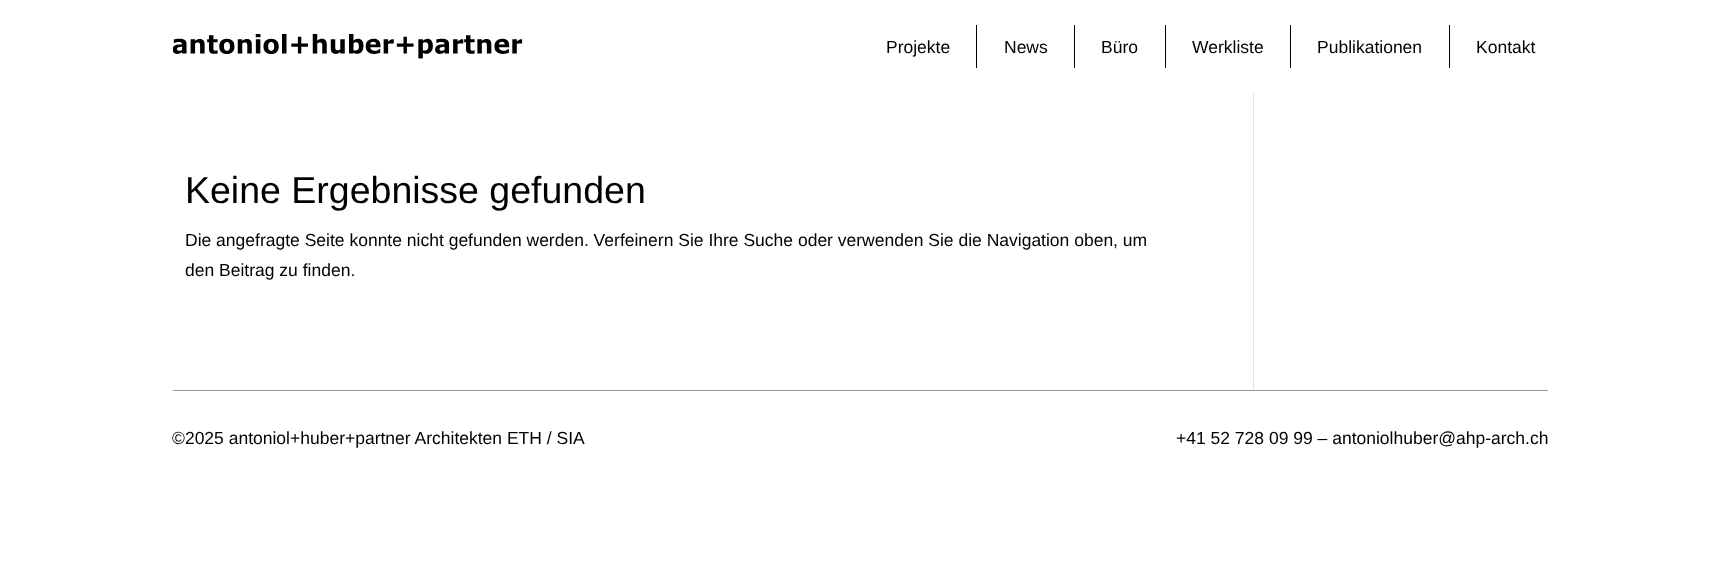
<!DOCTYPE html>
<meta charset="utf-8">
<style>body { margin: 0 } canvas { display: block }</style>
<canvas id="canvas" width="1720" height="567"></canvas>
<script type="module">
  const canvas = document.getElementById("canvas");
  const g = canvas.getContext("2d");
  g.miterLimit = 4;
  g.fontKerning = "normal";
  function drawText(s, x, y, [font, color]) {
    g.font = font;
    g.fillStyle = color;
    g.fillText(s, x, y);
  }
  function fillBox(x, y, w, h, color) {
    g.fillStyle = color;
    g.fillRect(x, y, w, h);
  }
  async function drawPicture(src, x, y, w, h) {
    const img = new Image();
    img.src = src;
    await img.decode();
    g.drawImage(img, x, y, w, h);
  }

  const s1 = ["17.5px Liberation Sans", "#000000"];
  const s2 = ["37.5px Liberation Sans", "#000000"];

  fillBox(0, 0, 1720, 567, "#FFFFFF");
  await drawPicture("pic1.png", 173, 34, 350, 25);
  fillBox(976, 25, 1, 43, "#000000");
  drawText("Projekte", 886, 53, s1);
  fillBox(1074, 25, 1, 43, "#000000");
  drawText("News", 1004, 53, s1);
  fillBox(1165, 25, 1, 43, "#000000");
  drawText("Büro", 1101, 53, s1);
  fillBox(1290, 25, 1, 43, "#000000");
  drawText("Werkliste", 1192, 53, s1);
  fillBox(1449, 25, 1, 43, "#000000");
  drawText("Publikationen", 1317, 53, s1);
  drawText("Kontakt", 1476, 53, s1);
  drawText("Keine Ergebnisse gefunden", 185, 203, s2);
  drawText("Die angefragte Seite konnte nicht gefunden werden. Verfeinern Sie Ihre Suche oder verwenden Sie die Navigation oben, um", 185, 246, s1);
  drawText("den Beitrag zu finden.", 185, 276, s1);
  fillBox(1253, 93, 1, 297, "#E2E2E2");
  fillBox(173, 390, 1375, 1, "#999999");
  drawText("©2025 antoniol+huber+partner Architekten ETH / SIA", 172, 444, s1);
  drawText("+41 52 728 09 99 – antoniolhuber@ahp-arch.ch", 1176, 444, s1);
</script>
